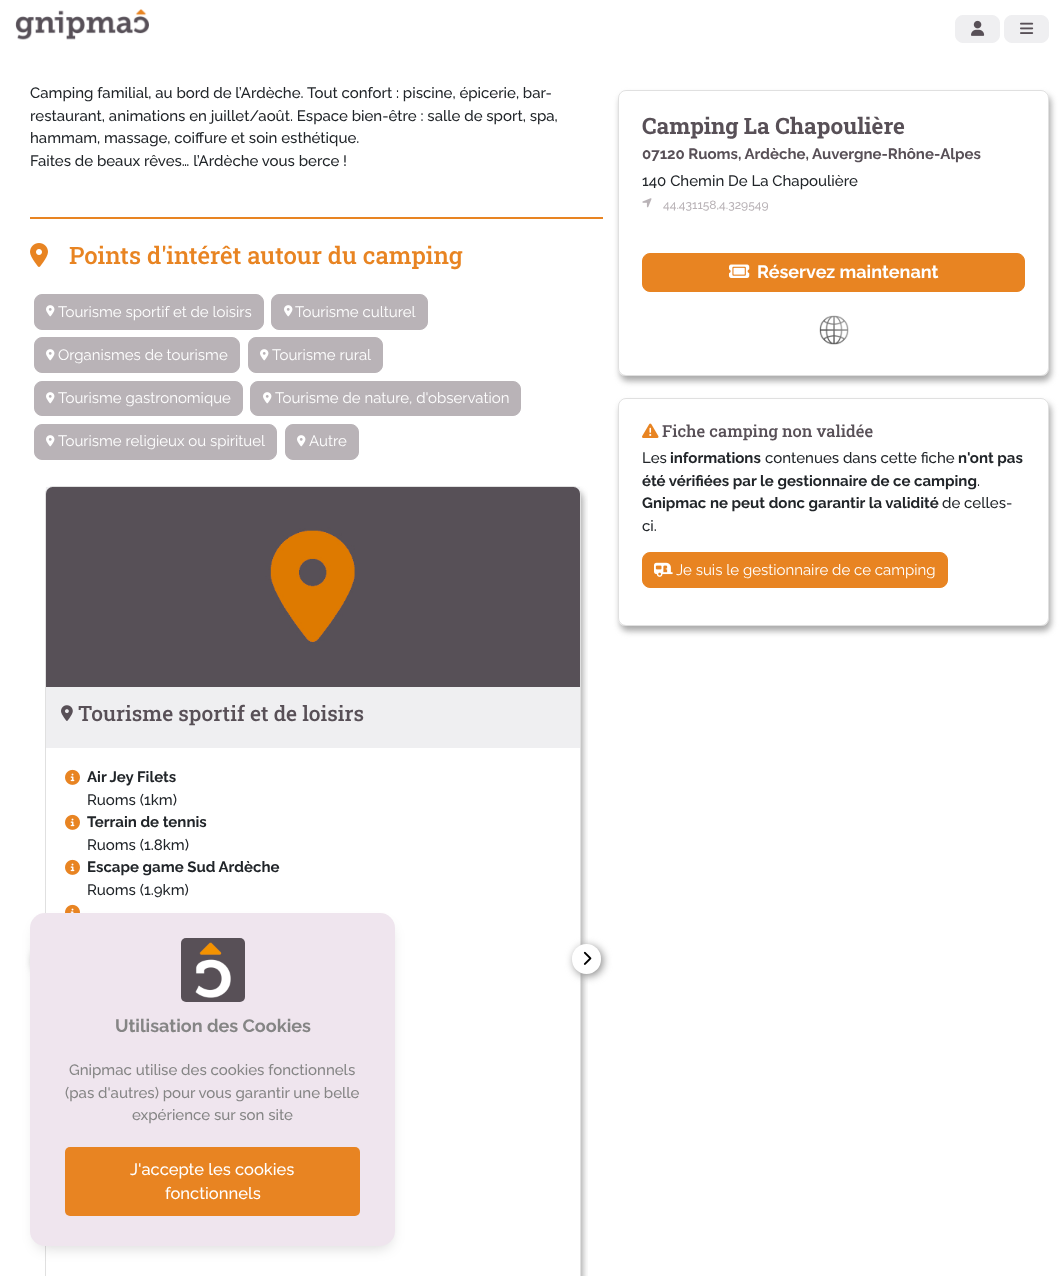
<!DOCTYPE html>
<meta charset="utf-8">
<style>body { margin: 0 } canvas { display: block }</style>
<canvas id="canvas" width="1064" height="1276"></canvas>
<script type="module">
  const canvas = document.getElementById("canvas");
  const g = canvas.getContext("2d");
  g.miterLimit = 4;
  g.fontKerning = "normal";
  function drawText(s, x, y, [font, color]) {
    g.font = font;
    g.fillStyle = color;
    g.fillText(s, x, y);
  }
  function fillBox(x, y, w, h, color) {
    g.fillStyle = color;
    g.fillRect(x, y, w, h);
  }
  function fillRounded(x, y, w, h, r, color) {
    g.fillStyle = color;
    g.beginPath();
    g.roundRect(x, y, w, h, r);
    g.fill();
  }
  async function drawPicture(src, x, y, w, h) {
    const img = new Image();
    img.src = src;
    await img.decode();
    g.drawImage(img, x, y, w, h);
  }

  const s1 = ["500 15px Raleway", "#212529"];
  const s2 = ["500 24px Roboto Slab", "#E88422"];
  const s3 = ["15px Raleway", "#FFFFFF"];
  const s4 = ["500 21px Roboto Slab", "#585057"];
  const s5 = ["bold 15px Raleway", "#212529"];
  const s6 = ["bold 22.5px Roboto Slab", "#585057"];
  const s7 = ["bold 15px Raleway", "#585057"];
  const s8 = ["500 12px Raleway", "#B9B3B7"];
  const s9 = ["bold 18px Raleway", "#FFFFFF"];
  const s10 = ["500 16.5px Roboto Slab", "#585057"];
  const s11 = ["bold 18px Raleway", "#858585"];
  const s12 = ["500 15px Raleway", "#858585"];
  const s13 = ["500 16.5px Raleway", "#FFFFFF"];

  fillBox(0, 0, 1064, 1276, "#FFFFFF");
  await drawPicture("pic1.png", 15, 9, 134, 31);
  g.fillStyle = "#EFEFF1";
  g.beginPath();
  g.roundRect(955.5, 15.5, 44, 27, 7.5);
  g.fill();
  g.strokeStyle = "#EFEFF1";
  g.stroke();
  await drawPicture("pic2.png", 971, 20, 14, 16);
  g.beginPath();
  g.roundRect(1004.5, 15.5, 44, 27, 7.5);
  g.fill();
  g.stroke();
  await drawPicture("pic3.png", 1020, 22, 14, 12);
  drawText("Camping familial, au bord de l’Ardèche. Tout confort : piscine, épicerie, bar-", 30, 98, s1);
  drawText("restaurant, animations en juillet/août. Espace bien-être : salle de sport, spa,", 30, 121, s1);
  drawText("hammam, massage, coiffure et soin esthétique.", 30, 143, s1);
  drawText("Faites de beaux rêves… l’Ardèche vous berce !", 30, 166, s1);
  fillBox(30, 217, 573, 2, "#E88422");
  await drawPicture("pic4.png", 30, 243, 18, 24);
  drawText("Points d'intérêt autour du camping", 69, 264, s2);
  g.fillStyle = "#B9B3B7";
  g.beginPath();
  g.roundRect(34.5, 294.5, 229, 35, 7.5);
  g.fill();
  g.strokeStyle = "#B9B3B7";
  g.stroke();
  await drawPicture("pic5.png", 46, 305, 9, 12);
  drawText("Tourisme sportif et de loisirs", 58, 317, s3);
  g.fillStyle = "#B9B3B7";
  g.beginPath();
  g.roundRect(271.5, 294.5, 156, 35, 7.5);
  g.fill();
  g.stroke();
  await drawPicture("pic5.png", 284, 305, 9, 12);
  drawText("Tourisme culturel", 295, 317, s3);
  g.fillStyle = "#B9B3B7";
  g.beginPath();
  g.roundRect(34.5, 337.5, 205, 35, 7.5);
  g.fill();
  g.stroke();
  await drawPicture("pic5.png", 46, 349, 9, 12);
  drawText("Organismes de tourisme", 58, 360, s3);
  g.fillStyle = "#B9B3B7";
  g.beginPath();
  g.roundRect(248.5, 337.5, 134, 35, 7.5);
  g.fill();
  g.stroke();
  await drawPicture("pic5.png", 260, 349, 9, 12);
  drawText("Tourisme rural", 272, 360, s3);
  g.fillStyle = "#B9B3B7";
  g.beginPath();
  g.roundRect(34.5, 381.5, 208, 34, 7.5);
  g.fill();
  g.stroke();
  await drawPicture("pic5.png", 46, 392, 9, 12);
  drawText("Tourisme gastronomique", 58, 403, s3);
  g.fillStyle = "#B9B3B7";
  g.beginPath();
  g.roundRect(250.5, 381.5, 270, 34, 7.5);
  g.fill();
  g.stroke();
  await drawPicture("pic5.png", 263, 392, 9, 12);
  drawText("Tourisme de nature, d'observation", 275, 403, s3);
  g.fillStyle = "#B9B3B7";
  g.beginPath();
  g.roundRect(34.5, 424.5, 242, 35, 7.5);
  g.fill();
  g.stroke();
  await drawPicture("pic5.png", 46, 435, 9, 12);
  drawText("Tourisme religieux ou spirituel", 58, 446, s3);
  g.fillStyle = "#B9B3B7";
  g.beginPath();
  g.roundRect(285.5, 424.5, 73, 35, 7.5);
  g.fill();
  g.stroke();
  await drawPicture("pic5.png", 297, 435, 9, 12);
  drawText("Autre", 309, 446, s3);
  g.save();
  g.beginPath();
  g.rect(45, 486, 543, 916);
  g.clip();
  g.fillStyle = "#AAAAAA";
  g.filter = "blur(3px)";
  g.beginPath();
  g.roundRect(47, 491, 536, 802, 8);
  g.fill();
  g.filter = "none";
  g.restore();
  fillRounded(45, 486, 536, 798, 8, "#FFFFFF");
  g.beginPath();
  g.roundRect(45.5, 486.5, 535, 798, 7.5);
  g.strokeStyle = "rgba(0, 0, 0, 0.12)";
  g.stroke();
  fillBox(46, 487, 534, 261, "#EFEFF1");
  await drawPicture("pic6.png", 46, 487, 534, 200);
  await drawPicture("pic7.png", 61, 705, 12, 16);
  drawText("Tourisme sportif et de loisirs", 78, 721, s4);
  await drawPicture("pic8.png", 65, 769, 15, 16);
  drawText("Air Jey Filets", 87, 782, s5);
  drawText("Ruoms (1km)", 87, 805, s1);
  await drawPicture("pic8.png", 65, 814, 15, 16);
  drawText("Terrain de tennis", 87, 827, s5);
  drawText("Ruoms (1.8km)", 87, 850, s1);
  await drawPicture("pic8.png", 65, 859, 15, 16);
  drawText("Escape game Sud Ardèche", 87, 872, s5);
  drawText("Ruoms (1.9km)", 87, 895, s1);
  await drawPicture("pic9.png", 65, 904, 15, 9);
  g.fillStyle = "#888888";
  g.filter = "blur(4.5px)";
  g.beginPath();
  g.roundRect(34, 946, 29, 30, 14.5);
  g.fill();
  g.filter = "none";
  g.filter = "blur(4.5px)";
  g.beginPath();
  g.roundRect(574, 946, 29, 30, 14.5);
  g.fill();
  g.filter = "none";
  fillRounded(572, 944, 29, 30, 14.5, "#FFFFFF");
  await drawPicture("pic10.png", 583, 951, 9, 14);
  g.save();
  g.beginPath();
  g.moveTo(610, 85);
  g.lineTo(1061, 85);
  g.lineTo(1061, 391);
  g.lineTo(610, 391);
  g.closePath();
  g.moveTo(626, 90);
  g.lineTo(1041, 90);
  g.bezierCurveTo(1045.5, 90, 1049, 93.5, 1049, 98);
  g.lineTo(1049, 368);
  g.bezierCurveTo(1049, 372.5, 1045.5, 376, 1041, 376);
  g.lineTo(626, 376);
  g.bezierCurveTo(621.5, 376, 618, 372.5, 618, 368);
  g.lineTo(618, 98);
  g.bezierCurveTo(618, 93.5, 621.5, 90, 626, 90);
  g.closePath();
  g.clip("evenodd");
  g.fillStyle = "#AAAAAA";
  g.filter = "blur(3px)";
  g.beginPath();
  g.roundRect(620, 95, 431, 286, 8);
  g.fill();
  g.filter = "none";
  g.restore();
  g.beginPath();
  g.roundRect(618.5, 90.5, 430, 285, 7.5);
  g.stroke();
  drawText("Camping La Chapoulière", 642, 134, s6);
  drawText("07120 Ruoms, Ardèche, Auvergne-Rhône-Alpes", 642, 159, s7);
  drawText("140 Chemin De La Chapoulière", 642, 186, s1);
  await drawPicture("pic11.png", 642, 198, 10, 10);
  drawText("44.431158,4.329549", 663, 209, s8);
  g.fillStyle = "#E88422";
  g.beginPath();
  g.roundRect(642.5, 253.5, 382, 38, 7.5);
  g.fill();
  g.strokeStyle = "#E88422";
  g.stroke();
  await drawPicture("pic12.png", 729, 264, 21, 14);
  drawText("Réservez maintenant", 757, 278, s9);
  await drawPicture("pic13.png", 819, 315, 30, 30);
  g.save();
  g.beginPath();
  g.moveTo(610, 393);
  g.lineTo(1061, 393);
  g.lineTo(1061, 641);
  g.lineTo(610, 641);
  g.closePath();
  g.moveTo(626, 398);
  g.lineTo(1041, 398);
  g.bezierCurveTo(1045.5, 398, 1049, 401.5, 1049, 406);
  g.lineTo(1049, 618);
  g.bezierCurveTo(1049, 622.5, 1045.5, 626, 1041, 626);
  g.lineTo(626, 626);
  g.bezierCurveTo(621.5, 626, 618, 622.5, 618, 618);
  g.lineTo(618, 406);
  g.bezierCurveTo(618, 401.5, 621.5, 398, 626, 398);
  g.closePath();
  g.clip("evenodd");
  g.fillStyle = "#AAAAAA";
  g.filter = "blur(3px)";
  g.beginPath();
  g.roundRect(620, 403, 431, 228, 8);
  g.fill();
  g.filter = "none";
  g.restore();
  g.beginPath();
  g.roundRect(618.5, 398.5, 430, 227, 7.5);
  g.strokeStyle = "rgba(0, 0, 0, 0.12)";
  g.stroke();
  await drawPicture("pic14.png", 642, 423, 17, 15);
  drawText("Fiche camping non validée", 662, 437, s10);
  drawText("Les", 642, 463, s1);
  drawText("informations", 670, 463, s5);
  drawText("contenues dans cette fiche", 765, 463, s1);
  drawText("n'ont pas", 958, 463, s5);
  drawText("été vérifiées par le gestionnaire de ce camping", 642, 486, s5);
  drawText(".", 977, 486, s1);
  drawText("Gnipmac ne peut donc garantir la validité", 642, 508, s5);
  drawText("de celles-", 942, 508, s1);
  drawText("ci.", 642, 531, s1);
  g.fillStyle = "#E88422";
  g.beginPath();
  g.roundRect(642.5, 552.5, 305, 35, 7.5);
  g.fill();
  g.strokeStyle = "#E88422";
  g.stroke();
  await drawPicture("pic15.png", 654, 562, 19, 15);
  drawText("Je suis le gestionnaire de ce camping", 676, 575, s3);
  g.fillStyle = "rgba(0, 0, 0, 0.15)";
  g.filter = "blur(7px)";
  g.beginPath();
  g.roundRect(36, 925, 355, 323, 10);
  g.fill();
  g.filter = "none";
  fillRounded(30, 913, 365, 333, 15, "#EFE5EE");
  await drawPicture("pic16.png", 181, 938, 64, 64);
  drawText("Utilisation des Cookies", 115, 1032, s11);
  drawText("Gnipmac utilise des cookies fonctionnels", 69, 1075, s12);
  drawText("(pas d'autres) pour vous garantir une belle", 65, 1098, s12);
  drawText("expérience sur son site", 132, 1120, s12);
  fillRounded(65, 1147, 295, 69, 5, "#E88422");
  drawText("J'accepte les cookies", 130, 1175, s13);
  drawText("fonctionnels", 165, 1199, s13);
</script>
